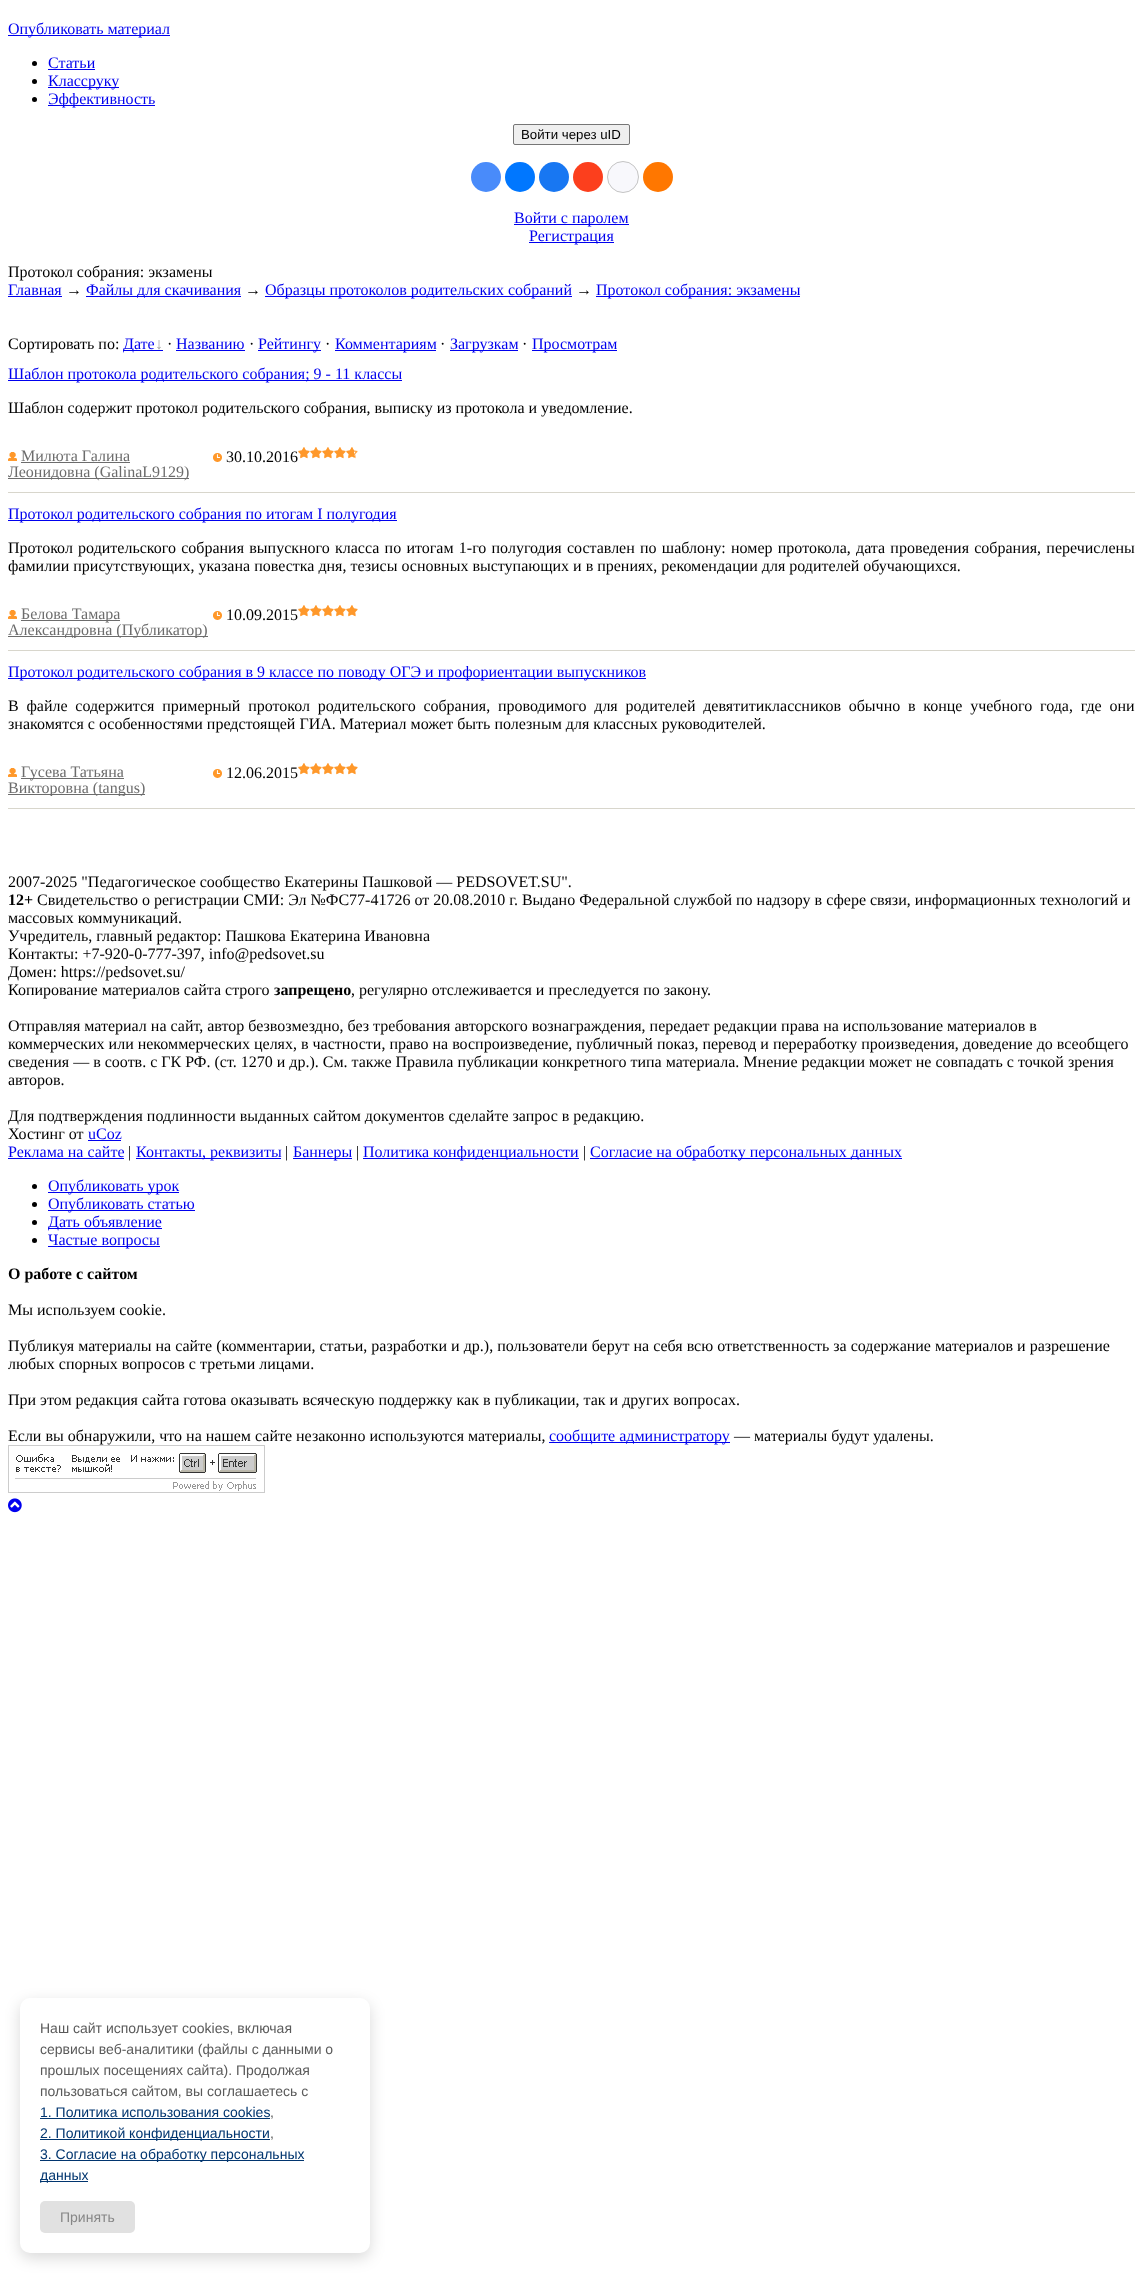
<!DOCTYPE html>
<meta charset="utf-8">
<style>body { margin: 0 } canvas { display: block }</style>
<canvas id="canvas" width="1143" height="2273"></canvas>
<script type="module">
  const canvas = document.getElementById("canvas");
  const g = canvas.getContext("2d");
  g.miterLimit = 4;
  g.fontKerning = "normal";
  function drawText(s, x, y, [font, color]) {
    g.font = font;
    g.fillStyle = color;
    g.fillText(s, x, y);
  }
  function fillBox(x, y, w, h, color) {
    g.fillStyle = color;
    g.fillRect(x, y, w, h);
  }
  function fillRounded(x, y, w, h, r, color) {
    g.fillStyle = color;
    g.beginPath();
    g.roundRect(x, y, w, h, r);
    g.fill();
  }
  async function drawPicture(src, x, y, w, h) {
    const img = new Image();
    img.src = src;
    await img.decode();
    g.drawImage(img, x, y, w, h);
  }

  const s1 = ["16px Liberation Serif", "#0000EE"];
  const s2 = ["13.25px Liberation Sans", "#000000"];
  const s3 = ["16px Liberation Serif", "#000000"];
  const s4 = ["16px Liberation Serif", "#A0A0A0"];
  const s5 = ["16px Liberation Serif", "#6C6C6C"];
  const s6 = ["bold 16px Liberation Serif", "#000000"];
  const s7 = ["14px Liberation Sans", "#5A5A5A"];
  const s8 = ["14px Liberation Sans", "#01356F"];
  const s9 = ["14px Liberation Sans", "#878787"];

  fillBox(0, 0, 1143, 2273, "#FFFFFF");
  fillBox(8, 35, 162, 1, "#0000EE");
  drawText("Опубликовать материал", 8, 34, s1);
  g.fillStyle = "#000000";
  g.beginPath();
  g.arc(34.5, 63.5, 2.5, 0, Math.PI * 2);
  g.fill();
  drawText("Статьи", 48, 68, s1);
  fillBox(48, 69, 47, 1, "#0000EE");
  g.fillStyle = "#000000";
  g.beginPath();
  g.arc(34.5, 81.5, 2.5, 0, Math.PI * 2);
  g.fill();
  fillBox(48, 87, 71, 1, "#0000EE");
  drawText("Классруку", 48, 86, s1);
  g.fillStyle = "#000000";
  g.beginPath();
  g.arc(34.5, 99.5, 2.5, 0, Math.PI * 2);
  g.fill();
  fillBox(48, 105, 107, 1, "#0000EE");
  drawText("Эффективность", 48, 104, s1);
  g.fillStyle = "#EFEFEF";
  g.beginPath();
  g.roundRect(513.5, 124.5, 116, 20, 1.5);
  g.fill();
  g.strokeStyle = "#767676";
  g.stroke();
  drawText("Войти через uID", 521, 139, s2);
  g.fillStyle = "#498BFA";
  g.beginPath();
  g.arc(486, 177, 15, 0, Math.PI * 2);
  g.fill();
  g.fillStyle = "#0077FF";
  g.beginPath();
  g.arc(520, 177, 15, 0, Math.PI * 2);
  g.fill();
  g.fillStyle = "#1877F2";
  g.beginPath();
  g.arc(554, 177, 15, 0, Math.PI * 2);
  g.fill();
  g.fillStyle = "#FC3F1D";
  g.beginPath();
  g.arc(588, 177, 15, 0, Math.PI * 2);
  g.fill();
  g.fillStyle = "#F8F8FC";
  g.beginPath();
  g.arc(623, 177, 15.5, 0, Math.PI * 2);
  g.fill();
  g.strokeStyle = "#C4C4C4";
  g.stroke();
  g.fillStyle = "#FF7700";
  g.beginPath();
  g.arc(658, 177, 15, 0, Math.PI * 2);
  g.fill();
  fillBox(514, 224, 115, 1, "#0000EE");
  drawText("Войти с паролем", 514, 223, s1);
  fillBox(529, 242, 85, 1, "#0000EE");
  drawText("Регистрация", 529, 241, s1);
  drawText("Протокол собрания: экзамены", 8, 277, s3);
  drawText("Главная", 8, 295, s1);
  fillBox(8, 296, 54, 1, "#0000EE");
  drawText("→", 66, 295, s3);
  fillBox(86, 296, 155, 1, "#0000EE");
  drawText("Файлы для скачивания", 86, 295, s1);
  drawText("→", 245, 295, s3);
  fillBox(265, 296, 307, 1, "#0000EE");
  drawText("Образцы протоколов родительских собраний", 265, 295, s1);
  drawText("→", 576, 295, s3);
  fillBox(596, 296, 204, 1, "#0000EE");
  drawText("Протокол собрания: экзамены", 596, 295, s1);
  drawText("Сортировать по:", 8, 349, s3);
  fillBox(123, 350, 40, 1, "#0000EE");
  drawText("Дате", 123, 349, s1);
  drawText("↓", 155, 349, s4);
  drawText("·", 167, 349, s3);
  drawText("Названию", 176, 349, s1);
  fillBox(176, 350, 69, 1, "#0000EE");
  drawText("·", 249, 349, s3);
  fillBox(258, 350, 63, 1, "#0000EE");
  drawText("Рейтингу", 258, 349, s1);
  drawText("·", 325, 349, s3);
  fillBox(335, 350, 101, 1, "#0000EE");
  drawText("Комментариям", 335, 349, s1);
  drawText("·", 440, 349, s3);
  fillBox(450, 350, 68, 1, "#0000EE");
  drawText("Загрузкам", 450, 349, s1);
  drawText("·", 522, 349, s3);
  fillBox(532, 350, 85, 1, "#0000EE");
  drawText("Просмотрам", 532, 349, s1);
  fillBox(8, 492, 1127, 1, "#D8D6CC");
  fillBox(8, 380, 394, 1, "#0000EE");
  drawText("Шаблон протокола родительского собрания; 9 - 11 классы", 8, 379, s1);
  drawText("Шаблон содержит протокол родительского собрания, выписку из протокола и уведомление.", 8, 413, s3);
  await drawPicture("pic1.png", 8, 452, 9, 9);
  drawText("Милюта Галина", 21, 461, s5);
  fillBox(21, 462, 109, 1, "#6C6C6C");
  fillBox(8, 478, 181, 1, "#6C6C6C");
  drawText("Леонидовна (GalinaL9129)", 8, 477, s5);
  await drawPicture("pic2.png", 213, 453, 9, 9);
  drawText("30.10.2016", 226, 462, s3);
  await drawPicture("pic3.png", 298, 447, 60, 12);
  await drawPicture("pic4.png", 298, 447, 56, 12);
  fillBox(8, 650, 1127, 1, "#D8D6CC");
  fillBox(8, 520, 389, 1, "#0000EE");
  drawText("Протокол родительского собрания по итогам I полугодия", 8, 519, s1);
  g.wordSpacing = "1.25px";
  drawText("Протокол родительского собрания выпускного класса по итогам 1-го полугодия составлен по шаблону: номер протокола, дата проведения собрания, перечислены", 8, 553, s3);
  g.wordSpacing = "0px";
  drawText("фамилии присутствующих, указана повестка дня, тезисы основных выступающих и в прениях, рекомендации для родителей обучающихся.", 8, 571, s3);
  await drawPicture("pic1.png", 8, 610, 9, 9);
  fillBox(21, 620, 99, 1, "#6C6C6C");
  drawText("Белова Тамара", 21, 619, s5);
  fillBox(8, 636, 200, 1, "#6C6C6C");
  g.save();
  g.beginPath();
  g.rect(8, 606, 200, 32);
  g.clip();
  drawText("Александровна (Публикатор)", 8, 635, s5);
  g.restore();
  await drawPicture("pic2.png", 213, 611, 9, 9);
  drawText("10.09.2015", 226, 620, s3);
  await drawPicture("pic3.png", 298, 605, 60, 12);
  await drawPicture("pic5.png", 298, 605, 60, 12);
  fillBox(8, 808, 1127, 1, "#D8D6CC");
  fillBox(8, 678, 638, 1, "#0000EE");
  drawText("Протокол родительского собрания в 9 классе по поводу ОГЭ и профориентации выпускников", 8, 677, s1);
  g.wordSpacing = "3.75px";
  drawText("В файле содержится примерный протокол родительского собрания, проводимого для родителей девятитиклассников обычно в конце учебного года, где они", 8, 711, s3);
  g.wordSpacing = "0px";
  drawText("знакомятся с особенностями предстоящей ГИА. Материал может быть полезным для классных руководителей.", 8, 729, s3);
  await drawPicture("pic1.png", 8, 768, 9, 9);
  fillBox(21, 778, 103, 1, "#6C6C6C");
  drawText("Гусева Татьяна", 21, 777, s5);
  fillBox(8, 794, 137, 1, "#6C6C6C");
  g.save();
  g.beginPath();
  g.rect(8, 764, 200, 32);
  g.clip();
  drawText("Викторовна (tangus)", 8, 793, s5);
  g.restore();
  await drawPicture("pic2.png", 213, 769, 9, 9);
  drawText("12.06.2015", 226, 778, s3);
  await drawPicture("pic3.png", 298, 763, 60, 12);
  await drawPicture("pic5.png", 298, 763, 60, 12);
  drawText("2007-2025 \"Педагогическое сообщество Екатерины Пашковой — PEDSOVET.SU\".", 8, 887, s3);
  drawText("12+", 8, 905, s6);
  drawText("Свидетельство о регистрации СМИ: Эл №ФС77-41726 от 20.08.2010 г. Выдано Федеральной службой по надзору в сфере связи, информационных технологий и", 37, 905, s3);
  drawText("массовых коммуникаций.", 8, 923, s3);
  drawText("Учредитель, главный редактор: Пашкова Екатерина Ивановна", 8, 941, s3);
  drawText("Контакты: +7-920-0-777-397, info@pedsovet.su", 8, 959, s3);
  drawText("Домен: https://pedsovet.su/", 8, 977, s3);
  drawText("Копирование материалов сайта строго", 8, 995, s3);
  drawText("запрещено", 274, 995, s6);
  drawText(", регулярно отслеживается и преследуется по закону.", 351, 995, s3);
  drawText("Отправляя материал на сайт, автор безвозмездно, без требования авторского вознаграждения, передает редакции права на использование материалов в", 8, 1031, s3);
  drawText("коммерческих или некоммерческих целях, в частности, право на воспроизведение, публичный показ, перевод и переработку произведения, доведение до всеобщего", 8, 1049, s3);
  drawText("сведения — в соотв. с ГК РФ. (ст. 1270 и др.). См. также Правила публикации конкретного типа материала. Мнение редакции может не совпадать с точкой зрения", 8, 1067, s3);
  drawText("авторов.", 8, 1085, s3);
  drawText("Для подтверждения подлинности выданных сайтом документов сделайте запрос в редакцию.", 8, 1121, s3);
  drawText("Хостинг от", 8, 1139, s3);
  drawText("uCoz", 88, 1139, s1);
  fillBox(88, 1140, 33, 1, "#0000EE");
  drawText("Реклама на сайте", 8, 1157, s1);
  fillBox(8, 1158, 116, 1, "#0000EE");
  drawText("|", 128, 1157, s3);
  fillBox(136, 1158, 145, 1, "#0000EE");
  drawText("Контакты, реквизиты", 136, 1157, s1);
  drawText("|", 285, 1157, s3);
  fillBox(293, 1158, 59, 1, "#0000EE");
  drawText("Баннеры", 293, 1157, s1);
  drawText("|", 356, 1157, s3);
  fillBox(363, 1158, 216, 1, "#0000EE");
  drawText("Политика конфиденциальности", 363, 1157, s1);
  drawText("|", 583, 1157, s3);
  fillBox(590, 1158, 312, 1, "#0000EE");
  drawText("Согласие на обработку персональных данных", 590, 1157, s1);
  g.fillStyle = "#000000";
  g.beginPath();
  g.arc(34.5, 1186.5, 2.5, 0, Math.PI * 2);
  g.fill();
  fillBox(48, 1192, 131, 1, "#0000EE");
  drawText("Опубликовать урок", 48, 1191, s1);
  g.fillStyle = "#000000";
  g.beginPath();
  g.arc(34.5, 1204.5, 2.5, 0, Math.PI * 2);
  g.fill();
  fillBox(48, 1210, 147, 1, "#0000EE");
  drawText("Опубликовать статью", 48, 1209, s1);
  g.fillStyle = "#000000";
  g.beginPath();
  g.arc(34.5, 1222.5, 2.5, 0, Math.PI * 2);
  g.fill();
  fillBox(48, 1228, 114, 1, "#0000EE");
  drawText("Дать объявление", 48, 1227, s1);
  g.fillStyle = "#000000";
  g.beginPath();
  g.arc(34.5, 1240.5, 2.5, 0, Math.PI * 2);
  g.fill();
  fillBox(48, 1246, 112, 1, "#0000EE");
  drawText("Частые вопросы", 48, 1245, s1);
  drawText("О работе с сайтом", 8, 1279, s6);
  drawText("Мы используем cookie.", 8, 1315, s3);
  drawText("Публикуя материалы на сайте (комментарии, статьи, разработки и др.), пользователи берут на себя всю ответственность за содержание материалов и разрешение", 8, 1351, s3);
  drawText("любых спорных вопросов с третьми лицами.", 8, 1369, s3);
  drawText("При этом редакция сайта готова оказывать всяческую поддержку как в публикации, так и других вопросах.", 8, 1405, s3);
  drawText("Если вы обнаружили, что на нашем сайте незаконно используются материалы,", 8, 1441, s3);
  fillBox(549, 1442, 181, 1, "#0000EE");
  drawText("сообщите администратору", 549, 1441, s1);
  drawText("— материалы будут удалены.", 734, 1441, s3);
  await drawPicture("pic6.png", 8, 1445, 257, 48);
  await drawPicture("pic7.png", 8, 1498, 14, 15);
  g.fillStyle = "rgba(0, 0, 0, 0.15)";
  g.filter = "blur(7.5px)";
  g.beginPath();
  g.roundRect(20, 2003, 350, 255, 10);
  g.fill();
  g.filter = "none";
  fillRounded(20, 1998, 350, 255, 10, "#FFFFFF");
  drawText("Наш сайт использует cookies, включая", 40, 2033, s7);
  drawText("сервисы веб-аналитики (файлы с данными о", 40, 2054, s7);
  drawText("прошлых посещениях сайта). Продолжая", 40, 2075, s7);
  drawText("пользоваться сайтом, вы соглашаетесь с", 40, 2096, s7);
  drawText("1. Политика использования cookies", 40, 2117, s8);
  fillBox(40, 2118, 230, 1, "#01356F");
  drawText(",", 270, 2117, s7);
  fillBox(40, 2139, 230, 1, "#01356F");
  drawText("2. Политикой конфиденциальности", 40, 2138, s8);
  drawText(",", 270, 2138, s7);
  fillBox(40, 2160, 264, 1, "#01356F");
  drawText("3. Согласие на обработку персональных", 40, 2159, s8);
  fillBox(40, 2181, 48, 1, "#01356F");
  drawText("данных", 40, 2180, s8);
  fillRounded(40, 2201, 95, 32, 5, "#E1E1E1");
  drawText("Принять", 60, 2222, s9);
</script>
